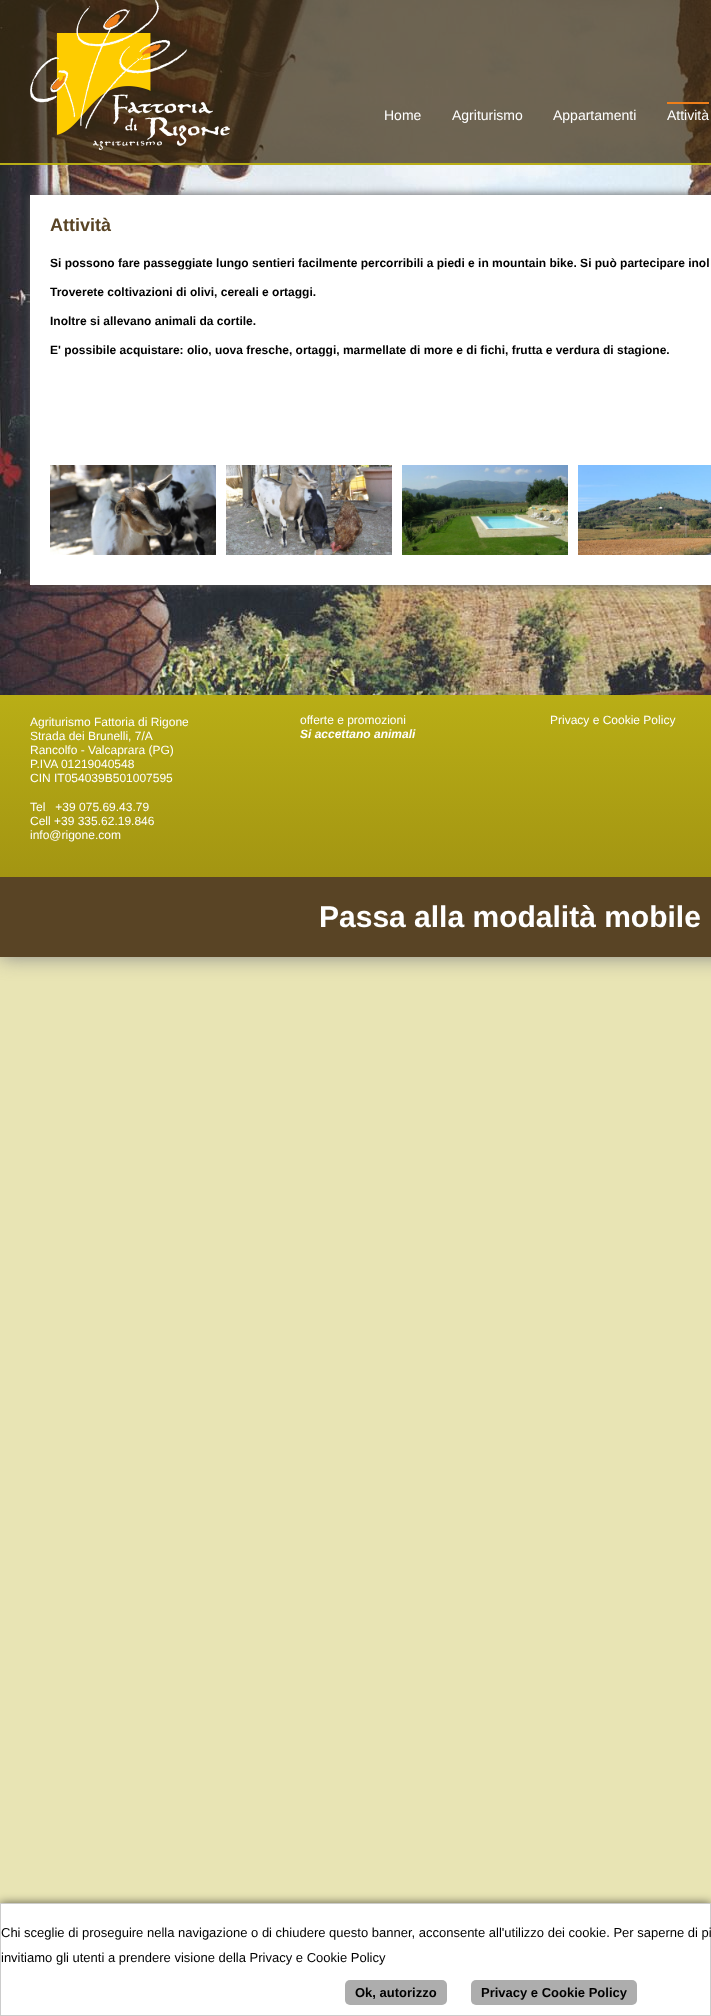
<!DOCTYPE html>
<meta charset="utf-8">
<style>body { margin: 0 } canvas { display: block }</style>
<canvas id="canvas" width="711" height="2016"></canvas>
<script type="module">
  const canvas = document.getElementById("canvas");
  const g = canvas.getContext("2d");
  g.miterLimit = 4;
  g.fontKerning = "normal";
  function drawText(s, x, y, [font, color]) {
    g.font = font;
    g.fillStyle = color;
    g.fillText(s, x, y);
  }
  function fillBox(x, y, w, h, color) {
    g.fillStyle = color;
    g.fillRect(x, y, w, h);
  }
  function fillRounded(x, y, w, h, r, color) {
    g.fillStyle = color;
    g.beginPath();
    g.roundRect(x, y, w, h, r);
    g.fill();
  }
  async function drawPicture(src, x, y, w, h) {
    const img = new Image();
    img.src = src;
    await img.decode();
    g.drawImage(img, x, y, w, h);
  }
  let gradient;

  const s1 = ["14px Liberation Sans", "#FFFFFF"];
  const s2 = ["bold 18px Liberation Sans", "#594425"];
  const s3 = ["bold 12px Liberation Sans", "#000000"];
  const s4 = ["12px Liberation Sans", "#FFFFFF"];
  const s5 = ["italic bold 12px Liberation Sans", "#FFFFFF"];
  const s6 = ["bold 30px Liberation Sans", "#FFFFFF"];
  const s7 = ["13px Liberation Sans", "#000000"];
  const s8 = ["bold 13px Liberation Sans", "#000000"];

  fillBox(0, 0, 711, 2016, "#E8E4B4");
  g.fillStyle = "#888888";
  g.filter = "blur(10px)";
  g.beginPath();
  g.rect(0, 0, 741, 957);
  g.fill();
  g.filter = "none";
  await drawPicture("pic1.png", 0, 0, 711, 695);
  fillBox(0, 0, 711, 163, "rgba(54, 38, 11, 0.7)");
  fillBox(0, 163, 711, 2, "#B9AE16");
  await drawPicture("pic2.png", 30, 0, 200, 150);
  drawText("Home", 384, 120, s1);
  drawText("Agriturismo", 452, 120, s1);
  drawText("Appartamenti", 553, 120, s1);
  drawText("Attività", 667, 120, s1);
  fillBox(667, 102, 42, 2, "#EF7F1A");
  g.fillStyle = "#555555";
  g.filter = "blur(5px)";
  g.beginPath();
  g.rect(30, 195, 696, 390);
  g.fill();
  g.filter = "none";
  fillBox(30, 195, 681, 390, "#FFFFFF");
  drawText("Attività", 50, 231, s2);
  drawText("Si possono fare passeggiate lungo sentieri facilmente percorribili a piedi e in mountain bike. Si può partecipare inol", 50, 267, s3);
  drawText("Troverete coltivazioni di olivi, cereali e ortaggi.", 50, 296, s3);
  drawText("Inoltre si allevano animali da cortile.", 50, 325, s3);
  drawText("E' possibile acquistare: olio, uova fresche, ortaggi, marmellate di more e di fichi, frutta e verdura di stagione.", 50, 354, s3);
  await drawPicture("pic3.png", 50, 465, 166, 90);
  await drawPicture("pic4.png", 226, 465, 166, 90);
  await drawPicture("pic5.png", 402, 465, 166, 90);
  await drawPicture("pic6.png", 578, 465, 133, 90);
  gradient = g.createLinearGradient(490, 695, 490, 877);
  gradient.addColorStop(0, "#B9AE16");
  gradient.addColorStop(1, "#A39512");
  g.fillStyle = gradient;
  g.fillRect(0, 695, 711, 182);
  drawText("Agriturismo Fattoria di Rigone", 30, 726, s4);
  drawText("Strada dei Brunelli, 7/A", 30, 740, s4);
  drawText("Rancolfo - Valcaprara (PG)", 30, 754, s4);
  drawText("P.IVA 01219040548", 30, 768, s4);
  drawText("CIN IT054039B501007595", 30, 782, s4);
  drawText("Tel   +39 075.69.43.79", 30, 811, s4);
  drawText("Cell +39 335.62.19.846", 30, 825, s4);
  drawText("info@rigone.com", 30, 839, s4);
  drawText("offerte e promozioni", 300, 724, s4);
  drawText("Si accettano animali", 300, 738, s5);
  drawText("Privacy e Cookie Policy", 550, 724, s4);
  fillBox(0, 877, 711, 80, "#594425");
  drawText("Passa alla modalità mobile", 319, 927, s6);
  g.fillStyle = "rgba(0, 0, 0, 0.6)";
  g.filter = "blur(5px)";
  g.beginPath();
  g.rect(0, 1903, 711, 113);
  g.fill();
  g.filter = "none";
  g.fillStyle = "#FFFFFF";
  g.beginPath();
  g.rect(0.5, 1903.5, 710, 112);
  g.fill();
  g.strokeStyle = "#CCCCCC";
  g.stroke();
  drawText("Chi sceglie di proseguire nella navigazione o di chiudere questo banner, acconsente all'utilizzo dei cookie. Per saperne di pi", 1, 1937, s7);
  drawText("invitiamo gli utenti a prendere visione della Privacy e Cookie Policy", 1, 1962, s7);
  fillRounded(345, 1980, 102, 25, 5, "#ADADAD");
  drawText("Ok, autorizzo", 355, 1997, s8);
  fillRounded(471, 1980, 166, 25, 5, "#ADADAD");
  drawText("Privacy e Cookie Policy", 481, 1997, s8);
</script>
